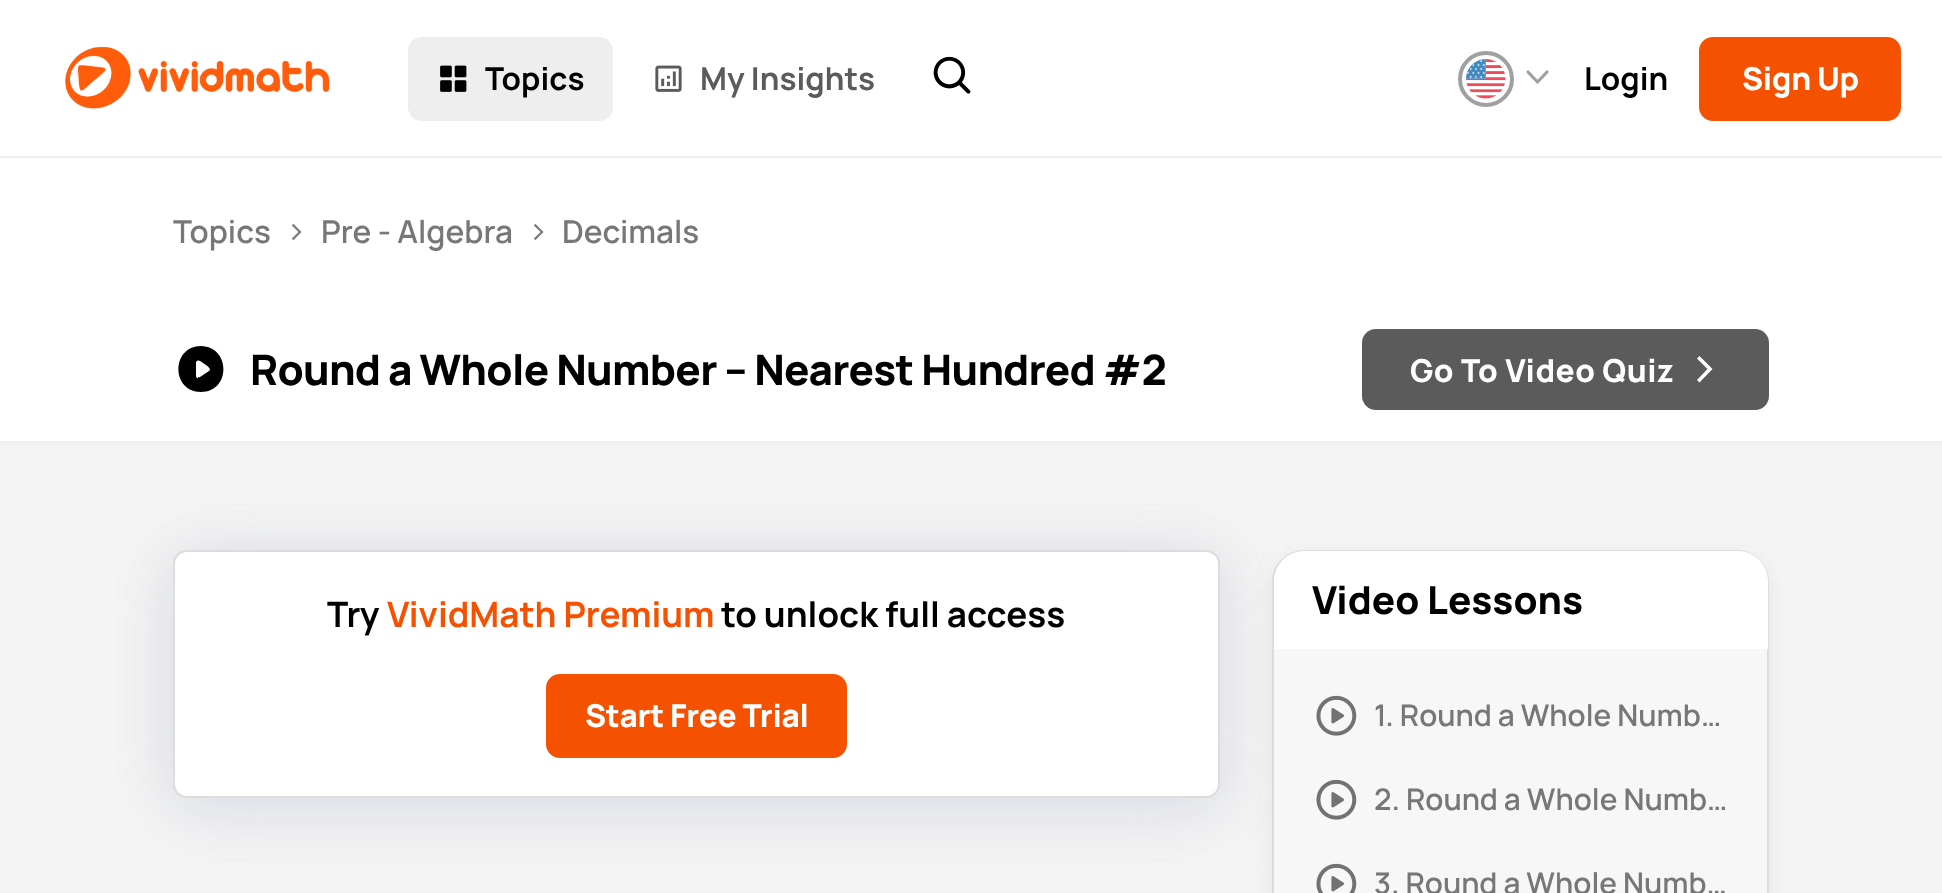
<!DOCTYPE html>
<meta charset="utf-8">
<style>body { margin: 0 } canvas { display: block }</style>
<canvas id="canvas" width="1942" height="893"></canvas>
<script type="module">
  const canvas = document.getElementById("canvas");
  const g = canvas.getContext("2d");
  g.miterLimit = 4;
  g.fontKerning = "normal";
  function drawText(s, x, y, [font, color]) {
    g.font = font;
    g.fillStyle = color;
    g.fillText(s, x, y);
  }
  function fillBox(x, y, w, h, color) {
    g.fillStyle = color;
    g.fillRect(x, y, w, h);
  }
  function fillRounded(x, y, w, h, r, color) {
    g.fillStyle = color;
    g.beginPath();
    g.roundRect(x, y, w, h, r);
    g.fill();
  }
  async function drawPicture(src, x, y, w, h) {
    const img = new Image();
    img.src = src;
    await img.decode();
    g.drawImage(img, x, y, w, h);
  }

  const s1 = ["bold 31.5px Manrope", "#000000"];
  const s2 = ["bold 31.5px Manrope", "#5B5B5B"];
  const s3 = ["800 31.5px Manrope", "#FFFFFF"];
  const s4 = ["600 31.5px Manrope", "#777777"];
  const s5 = ["35px Manrope", "#7F7F7F"];
  const s6 = ["800 42px Manrope", "#000000"];
  const s7 = ["bold 35px Manrope", "#000000"];
  const s8 = ["bold 35px Manrope", "#F45100"];
  const s9 = ["800 38.5px Manrope", "#000000"];
  const s10 = ["600 29.75px Manrope", "#777777"];

  fillBox(0, 0, 1942, 893, "#F4F4F4");
  fillBox(0, 0, 1942, 156, "#FFFFFF");
  fillBox(0, 156, 1942, 2, "#EFEFEF");
  await drawPicture("pic1.png", 65, 46, 265, 63);
  fillRounded(408, 37, 205, 84, 14, "#EEEEEE");
  await drawPicture("pic2.png", 440, 65, 27, 27);
  drawText("Topics", 485, 90, s1);
  await drawPicture("pic3.png", 655, 65, 27, 27);
  drawText("My Insights", 700, 90, s2);
  await drawPicture("pic4.png", 933, 56, 38, 38);
  g.beginPath();
  g.arc(1486, 79, 26, 0, Math.PI * 2);
  g.strokeStyle = "#A0A0A0";
  g.lineWidth = 4;
  g.stroke();
  await drawPicture("pic5.png", 1466, 59, 40, 40);
  g.beginPath();
  g.moveTo(1547, 72);
  g.lineTo(1537.5, 82);
  g.lineTo(1528, 72);
  g.lineWidth = 3.2;
  g.lineCap = "round";
  g.lineJoin = "round";
  g.stroke();
  drawText("Login", 1584, 90, s1);
  fillRounded(1699, 37, 202, 84, 14, "#F45100");
  g.letterSpacing = "-0.3px";
  drawText("Sign Up", 1742, 90, s3);
  fillBox(0, 158, 1942, 283, "#FFFFFF");
  fillBox(0, 441, 1942, 4, "#EFEFEF");
  g.letterSpacing = "0px";
  drawText("Topics", 173, 243, s4);
  drawText(">", 285, 243, s5);
  drawText("Pre - Algebra", 321, 243, s4);
  drawText(">", 527, 243, s5);
  drawText("Decimals", 562, 243, s4);
  g.fillStyle = "#000000";
  g.beginPath();
  g.moveTo(201, 346);
  g.bezierCurveTo(171, 346, 171, 392, 201, 392);
  g.bezierCurveTo(231, 392, 231, 347, 201, 346);
  g.moveTo(209, 371);
  g.lineTo(200, 377);
  g.bezierCurveTo(196, 380, 196, 377, 196, 372);
  g.lineTo(196, 362);
  g.lineTo(197, 361);
  g.bezierCurveTo(199, 359, 204, 364, 206, 365);
  g.bezierCurveTo(207, 366, 212, 369, 209, 371);
  g.fill();
  g.letterSpacing = "-0.7px";
  drawText("Round a Whole Number – Nearest Hundred #2", 250, 385, s6);
  fillRounded(1362, 329, 407, 81, 14, "#5B5B5B");
  g.letterSpacing = "0.5px";
  drawText("Go To Video Quiz", 1410, 382, s3);
  g.beginPath();
  g.moveTo(1699.5, 382.5);
  g.lineTo(1697, 380);
  g.lineTo(1707.5, 369);
  g.lineTo(1697, 358.5);
  g.lineTo(1699.5, 356);
  g.lineTo(1712.5, 369);
  g.closePath();
  g.fill();
  g.fillStyle = "rgba(166, 173, 201, 0.22)";
  g.filter = "blur(26px)";
  g.beginPath();
  g.roundRect(173, 558, 1047, 249, 14);
  g.fill();
  g.filter = "none";
  g.fillStyle = "rgba(154, 160, 185, 0.15)";
  g.filter = "blur(44px)";
  g.beginPath();
  g.roundRect(173, 558, 1047, 249, 14);
  g.fill();
  g.filter = "none";
  g.fillStyle = "#FFFFFF";
  g.beginPath();
  g.roundRect(174, 551, 1045, 246, 13);
  g.fill();
  g.strokeStyle = "#DCDCDC";
  g.lineWidth = 2;
  g.lineJoin = "miter";
  g.stroke();
  g.letterSpacing = "0px";
  drawText("Try", 327, 627, s7);
  drawText("VividMath Premium", 387, 627, s8);
  drawText("to unlock full access", 721, 627, s7);
  fillRounded(546, 674, 301, 84, 14, "#F45100");
  g.letterSpacing = "-0.3px";
  drawText("Start Free Trial", 585, 727, s3);
  g.fillStyle = "rgba(99, 109, 117, 0.1)";
  g.filter = "blur(10.5px)";
  g.beginPath();
  g.roundRect(1272, 557, 497, 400, 32);
  g.fill();
  g.filter = "none";
  g.fillStyle = "#F7F7F7";
  g.beginPath();
  g.roundRect(1273, 551, 495, 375, 31);
  g.fill();
  g.stroke();
  g.fillStyle = "#FFFFFF";
  g.beginPath();
  g.roundRect(1274, 551, 494, 98, [30, 30, 0, 0]);
  g.fill();
  g.letterSpacing = "0px";
  drawText("Video Lessons", 1312, 614, s9);
  await drawPicture("pic6.png", 1316, 695, 41, 41);
  drawText("1. Round a Whole Numb…", 1374, 726, s10);
  await drawPicture("pic6.png", 1316, 779, 41, 41);
  drawText("2. Round a Whole Numb…", 1374, 810, s10);
  await drawPicture("pic7.png", 1316, 863, 41, 30);
  drawText("3. Round a Whole Numb…", 1374, 894, s10);
</script>
